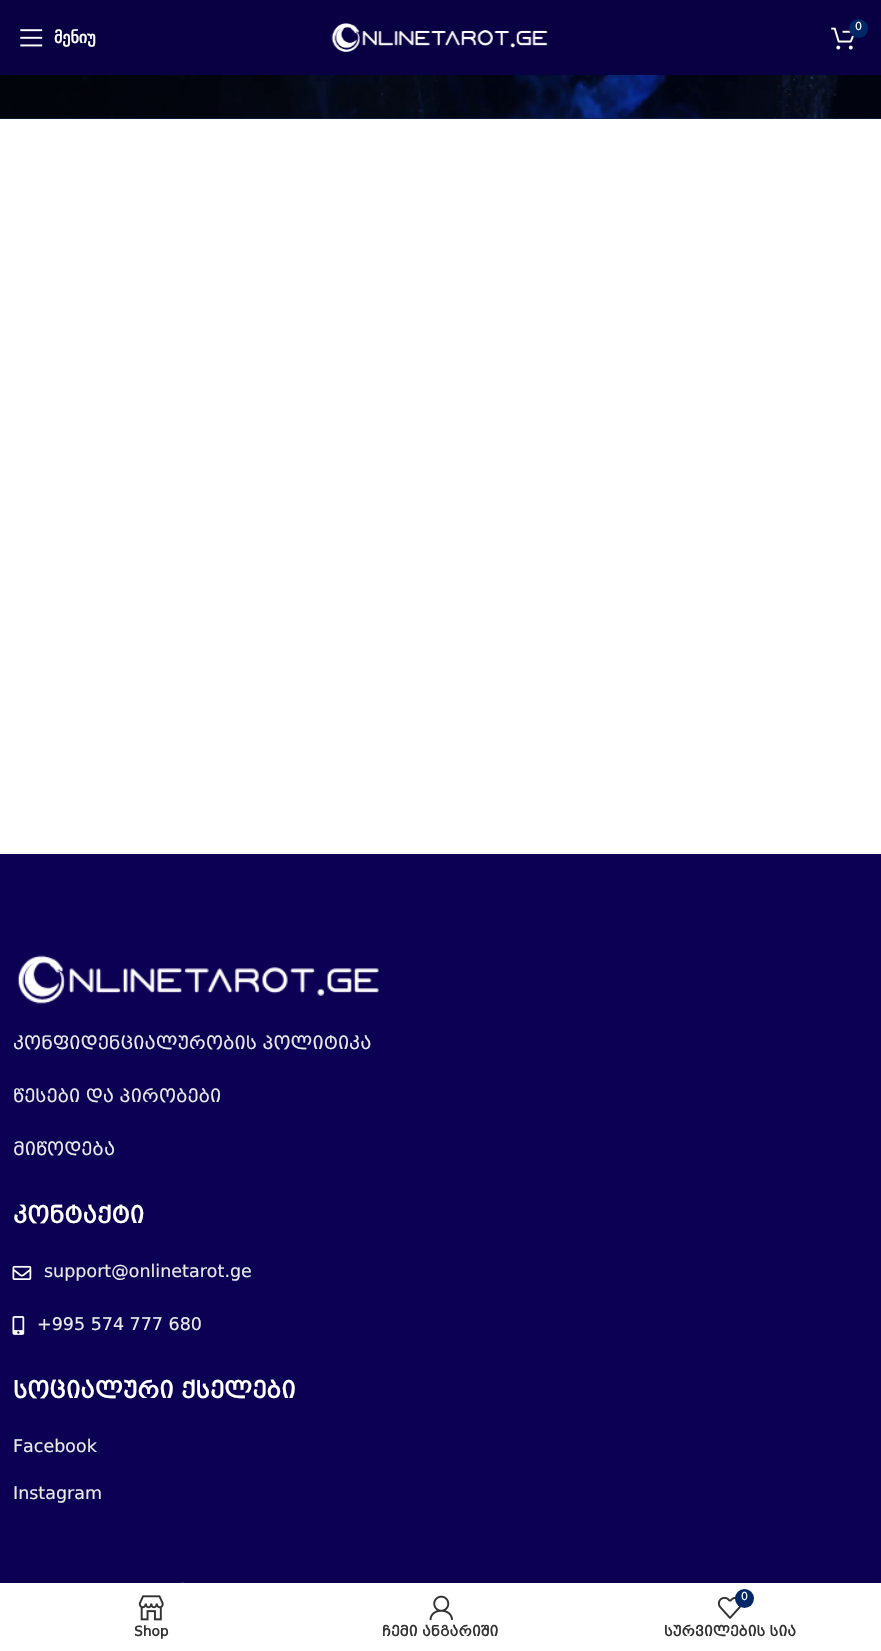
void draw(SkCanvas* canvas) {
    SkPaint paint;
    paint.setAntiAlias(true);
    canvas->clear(0xFFFFFFFF);
    paint.setColor(0xFF092143);
    canvas->drawRect(SkRect::MakeXYWH(0, 118, 881, 1), paint);
    canvas->drawImageRect(SkImages::DeferredFromEncodedData(SkData::MakeFromFileName("img4.png")), SkRect::MakeXYWH(0, 75, 881, 44), SkSamplingOptions());
    paint.setColor(0x1A000000);
    paint.setMaskFilter(SkMaskFilter::MakeBlur(kNormal_SkBlurStyle, 2));
    canvas->drawRect(SkRect::MakeXYWH(0, 1, 881, 75), paint);
    paint.setMaskFilter(nullptr);
    paint.setColor(0xFF090043);
    canvas->drawRect(SkRect::MakeXYWH(0, 0, 881, 75), paint);
    canvas->drawImageRect(SkImages::DeferredFromEncodedData(SkData::MakeFromFileName("img1.png")), SkRect::MakeXYWH(20, 29, 23, 18), SkSamplingOptions());
    SkFont font1(fontMgr->matchFamilyStyle("DejaVu Sans", SkFontStyle::Bold()), 16);
    font1.setSubpixel(true);
    paint.setColor(0xFFFFFFFF);
    canvas->drawString("მენიუ", 54, 43, font1, paint);
    canvas->drawImageRect(SkImages::DeferredFromEncodedData(SkData::MakeFromFileName("img2.png")), SkRect::MakeXYWH(331, 23, 217, 29), SkSamplingOptions());
    canvas->drawImageRect(SkImages::DeferredFromEncodedData(SkData::MakeFromFileName("img3.png")), SkRect::MakeXYWH(831, 27, 23, 23), SkSamplingOptions());
    paint.setColor(0xFF002766);
    canvas->drawCircle(858.5f, 28.5f, 9.5f, paint);
    SkFont font2(fontMgr->matchFamilyStyle("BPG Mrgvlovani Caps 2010", SkFontStyle::Normal()), 11);
    font2.setSubpixel(true);
    paint.setColor(0xFFFFFFFF);
    canvas->drawString("0", 855, 30, font2, paint);
    paint.setColor(0xFF0B0054);
    canvas->drawRect(SkRect::MakeXYWH(0, 854, 881, 729), paint);
    paint.setColor(0xFF0B0151);
    canvas->drawRect(SkRect::MakeXYWH(13, 1540, 856, 1), paint);
    canvas->drawImageRect(SkImages::DeferredFromEncodedData(SkData::MakeFromFileName("img5.png")), SkRect::MakeXYWH(17, 955, 362, 49), SkSamplingOptions());
    SkFont font3(fontMgr->matchFamilyStyle("BPG Mrgvlovani Caps 2010", SkFontStyle::Normal()), 17.5f);
    font3.setSubpixel(true);
    paint.setColor(0xFFEAEAEA);
    canvas->drawString("კონფიდენციალურობის პოლიტიკა", 13, 1049, font3, paint);
    canvas->drawString("წესები და პირობები", 13, 1102, font3, paint);
    canvas->drawString("მიწოდება", 13, 1155, font3, paint);
    SkFont font4(fontMgr->matchFamilyStyle("BPG Mrgvlovani Caps 2010", SkFontStyle::Bold()), 22.5f);
    font4.setSubpixel(true);
    paint.setColor(0xFFFFFFFF);
    canvas->drawString("კონტაქტი", 13, 1223, font4, paint);
    canvas->drawImageRect(SkImages::DeferredFromEncodedData(SkData::MakeFromFileName("img6.png")), SkRect::MakeXYWH(12, 1265, 20, 15), SkSamplingOptions());
    paint.setColor(0xFFEAEAEA);
    canvas->drawString("support@onlinetarot.ge", 44, 1277, font3, paint);
    canvas->drawImageRect(SkImages::DeferredFromEncodedData(SkData::MakeFromFileName("img7.png")), SkRect::MakeXYWH(12, 1316, 13, 19), SkSamplingOptions());
    canvas->drawString("+995 574 777 680", 37, 1330, font3, paint);
    paint.setColor(0xFFFFFFFF);
    canvas->drawString("სოციალური ქსელები", 13, 1398, font4, paint);
    paint.setColor(0xFFEAEAEA);
    canvas->drawString("Facebook", 13, 1452, font3, paint);
    canvas->drawString("Instagram", 13, 1499, font3, paint);
    canvas->drawImageRect(SkImages::DeferredFromEncodedData(SkData::MakeFromFileName("img8.png")), SkRect::MakeXYWH(181, 1582, 3, 1), SkSamplingOptions());
    paint.setColor(0x1F000000);
    paint.setMaskFilter(SkMaskFilter::MakeBlur(kNormal_SkBlurStyle, 5.5f));
    canvas->drawRect(SkRect::MakeXYWH(0, 1583, 881, 68), paint);
    paint.setMaskFilter(nullptr);
    paint.setColor(0xFFFFFFFF);
    canvas->drawRect(SkRect::MakeXYWH(0, 1583, 881, 68), paint);
    canvas->drawImageRect(SkImages::DeferredFromEncodedData(SkData::MakeFromFileName("img9.png")), SkRect::MakeXYWH(138, 1595, 26, 26), SkSamplingOptions());
    SkFont font5(fontMgr->matchFamilyStyle("BPG Mrgvlovani Caps 2010", SkFontStyle::Bold()), 13.75f);
    font5.setSubpixel(true);
    paint.setColor(0xFF333333);
    canvas->drawString("Shop", 134, 1636, font5, paint);
    canvas->drawImageRect(SkImages::DeferredFromEncodedData(SkData::MakeFromFileName("img10.png")), SkRect::MakeXYWH(429, 1595, 24, 25), SkSamplingOptions());
    canvas->drawString("ჩემი ანგარიში", 382, 1636, font5, paint);
    canvas->drawImageRect(SkImages::DeferredFromEncodedData(SkData::MakeFromFileName("img11.png")), SkRect::MakeXYWH(717, 1596, 24, 23), SkSamplingOptions());
    paint.setColor(0xFF002766);
    canvas->drawCircle(744.5f, 1598.5f, 9.5f, paint);
    paint.setColor(0xFFFFFFFF);
    canvas->drawString("0", 741, 1600, font2, paint);
    paint.setColor(0xFF333333);
    canvas->drawString("სურვილების სია", 664, 1636, font5, paint);
}
